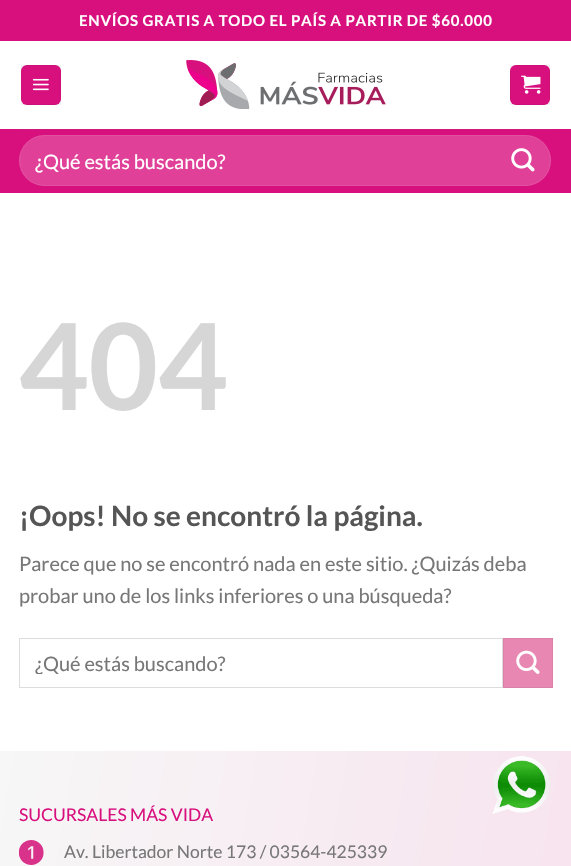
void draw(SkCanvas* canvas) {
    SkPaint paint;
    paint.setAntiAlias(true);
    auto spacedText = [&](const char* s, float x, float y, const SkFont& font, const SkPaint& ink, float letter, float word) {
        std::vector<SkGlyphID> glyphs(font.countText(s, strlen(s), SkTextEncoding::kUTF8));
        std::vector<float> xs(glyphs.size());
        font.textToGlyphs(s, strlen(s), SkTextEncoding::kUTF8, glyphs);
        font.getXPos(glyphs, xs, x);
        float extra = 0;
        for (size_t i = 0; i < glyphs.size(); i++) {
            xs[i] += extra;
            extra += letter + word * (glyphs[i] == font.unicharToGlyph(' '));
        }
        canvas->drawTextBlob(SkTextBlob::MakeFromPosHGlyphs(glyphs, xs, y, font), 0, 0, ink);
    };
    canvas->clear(0xFFFFFFFF);
    paint.setColor(0xFFD8107E);
    canvas->drawRect(SkRect::MakeXYWH(0, 0, 571, 41), paint);
    SkFont font1(fontMgr->matchFamilyStyle("Lato", SkFontStyle::Bold()), 15);
    font1.setSubpixel(true);
    paint.setColor(0xFFFFFFFF);
    spacedText("ENVÍOS GRATIS A TODO EL PAÍS A PARTIR DE $60.000", 79, 26, font1, paint, 0.75f, 0);
    paint.setColor(0xFFD8107E);
    canvas->drawRoundRect(SkRect::MakeXYWH(21, 65, 40, 40), 6, 6, paint);
    paint.setStyle(SkPaint::kStroke_Style);
    paint.setStrokeWidth(1);
    paint.setColor(0x0D000000);
    canvas->drawRect(SkRect::MakeXYWH(21.5f, 65.5f, 39, 39), paint);
    canvas->drawImageRect(SkImages::DeferredFromEncodedData(SkData::MakeFromFileName("img1.png")), SkRect::MakeXYWH(32, 78, 17, 13), SkSamplingOptions());
    canvas->drawImageRect(SkImages::DeferredFromEncodedData(SkData::MakeFromFileName("img2.png")), SkRect::MakeXYWH(186, 60, 200, 49), SkSamplingOptions());
    paint.setStyle(SkPaint::kFill_Style);
    paint.setColor(0xFFD8107E);
    canvas->drawRoundRect(SkRect::MakeXYWH(510, 65, 40, 40), 6, 6, paint);
    paint.setStyle(SkPaint::kStroke_Style);
    paint.setColor(0x0D000000);
    canvas->drawRect(SkRect::MakeXYWH(510.5f, 65.5f, 39, 39), paint);
    canvas->drawImageRect(SkImages::DeferredFromEncodedData(SkData::MakeFromFileName("img3.png")), SkRect::MakeXYWH(521, 75, 20, 19), SkSamplingOptions());
    paint.setStyle(SkPaint::kFill_Style);
    paint.setColor(0xFFD8107E);
    canvas->drawRect(SkRect::MakeXYWH(0, 129, 571, 64), paint);
    paint.setColor(0xFFCE1A7D);
    canvas->drawRect(SkRect::MakeXYWH(19, 129, 534, 1), paint);
    paint.setColor(0xFFE04098);
    canvas->drawRoundRect(SkRect::MakeXYWH(19, 135, 532, 51), 25.5f, 25.5f, paint);
    paint.setStyle(SkPaint::kStroke_Style);
    paint.setColor(0x17FFFFFF);
    canvas->drawRoundRect(SkRect::MakeXYWH(19.5f, 135.5f, 531, 50), 25, 25, paint);
    SkFont font2(fontMgr->matchFamilyStyle("Lato", SkFontStyle::Normal()), 20);
    font2.setSubpixel(true);
    paint.setStyle(SkPaint::kFill_Style);
    paint.setColor(0xFFFFFFFF);
    canvas->drawString("¿Qué estás buscando?", 35, 169, font2, paint);
    canvas->drawImageRect(SkImages::DeferredFromEncodedData(SkData::MakeFromFileName("img4.png")), SkRect::MakeXYWH(511, 148, 24, 24), SkSamplingOptions());
    SkFont font3(fontMgr->matchFamilyStyle("Lato", SkFontStyle::Bold()), 120);
    font3.setSubpixel(true);
    paint.setColor(0xFFD6D6D6);
    canvas->drawString("404", 19, 410, font3, paint);
    SkFont font4(fontMgr->matchFamilyStyle("Lato", SkFontStyle::Bold()), 28);
    font4.setSubpixel(true);
    paint.setColor(0xFF555555);
    canvas->drawString("¡Oops! No se encontró la página.", 19, 526, font4, paint);
    paint.setColor(0xFF777777);
    canvas->drawString("Parece que no se encontró nada en este sitio. ¿Quizás deba", 19, 571, font2, paint);
    canvas->drawString("probar uno de los links inferiores o una búsqueda?", 19, 603, font2, paint);
    paint.setStyle(SkPaint::kStroke_Style);
    paint.setColor(0xFFDDDDDD);
    canvas->drawRect(SkRect::MakeXYWH(19.5f, 638.5f, 483, 49), paint);
    canvas->save();
    canvas->clipRect(SkRect::MakeXYWH(35, 650, 446, 24));
    paint.setStyle(SkPaint::kFill_Style);
    paint.setColor(0xFF777777);
    canvas->drawString("¿Qué estás buscando?", 35, 671, font2, paint);
    canvas->restore();
    paint.setColor(0xFFE787B2);
    canvas->drawRect(SkRect::MakeXYWH(503.5f, 638.5f, 49, 49), paint);
    paint.setStyle(SkPaint::kStroke_Style);
    paint.setColor(0xFFDB80A9);
    canvas->drawRect(SkRect::MakeXYWH(503.5f, 638.5f, 49, 49), paint);
    canvas->drawImageRect(SkImages::DeferredFromEncodedData(SkData::MakeFromFileName("img5.png")), SkRect::MakeXYWH(516, 650, 24, 24), SkSamplingOptions());
    paint.setStyle(SkPaint::kFill_Style);
    {
        const SkColor colors[] = {0xFFF7F7F7, 0xFFF7D6E8};
        const float stops[] = {0, 1};
        const SkPoint ends[] = {{-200, 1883}, {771, 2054}};
        paint.setShader(SkGradientShader::MakeLinear(ends, colors, stops, 2, SkTileMode::kClamp));
        paint.setAlpha(255);
    }
    canvas->drawRect(SkRect::MakeXYWH(0, 751, 571, 115), paint);
    canvas->drawImageRect(SkImages::DeferredFromEncodedData(SkData::MakeFromFileName("img6.png")), SkRect::MakeXYWH(492, 756, 58, 58), SkSamplingOptions());
    SkFont font5(fontMgr->matchFamilyStyle("Lato", SkFontStyle::Normal()), 17.5f);
    font5.setSubpixel(true);
    paint.setShader(nullptr);
    paint.setColor(0xFFD8107E);
    canvas->drawString("SUCURSALES MÁS VIDA", 19, 821, font5, paint);
    canvas->drawImageRect(SkImages::DeferredFromEncodedData(SkData::MakeFromFileName("img7.png")), SkRect::MakeXYWH(19, 840, 25, 25), SkSamplingOptions());
    paint.setColor(0xFF777777);
    canvas->drawString("Av. Libertador Norte 173 / 03564-425339", 64, 858, font5, paint);
}
